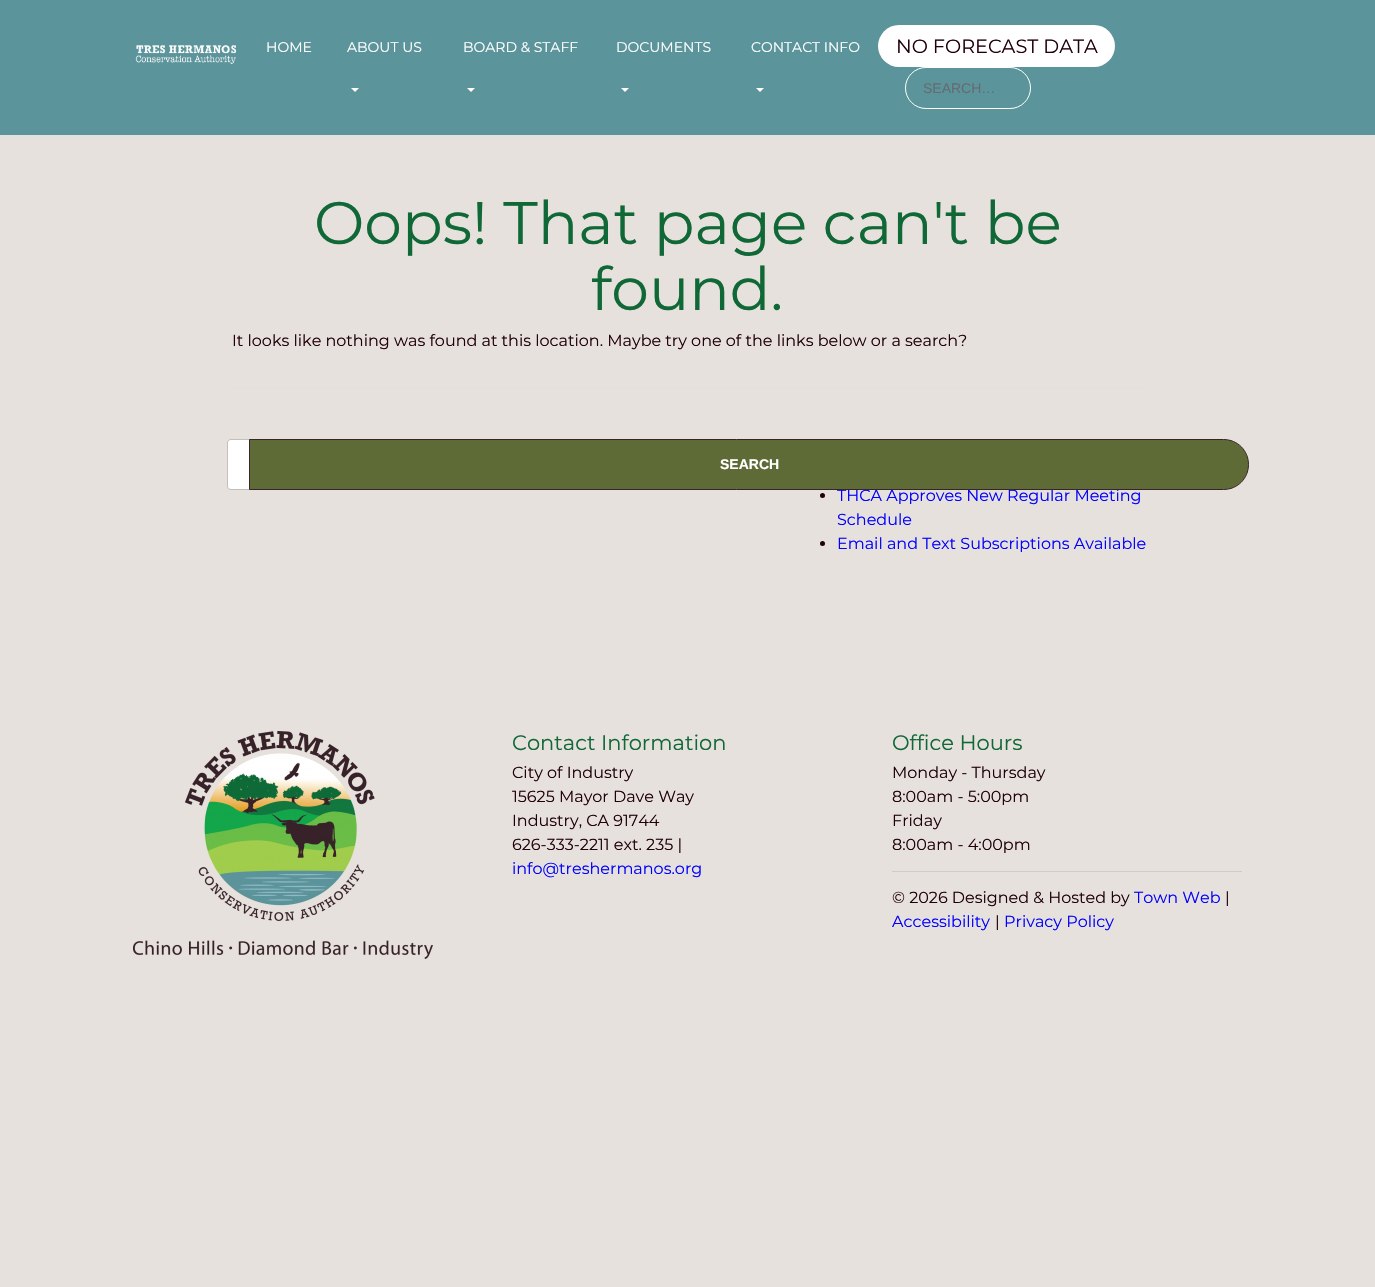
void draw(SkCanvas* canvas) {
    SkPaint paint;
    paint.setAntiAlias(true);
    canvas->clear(0xFFE6E1DD);
    paint.setColor(0xFF5C949B);
    canvas->drawRect(SkRect::MakeXYWH(0, 0, 1375, 135), paint);
    canvas->drawImageRect(SkImages::DeferredFromEncodedData(SkData::MakeFromFileName("img1.png")), SkRect::MakeXYWH(135, 45, 102, 19), SkSamplingOptions());
    SkFont font1(fontMgr->matchFamilyStyle("Montserrat", SkFontStyle::Normal()), 14);
    font1.setSubpixel(true);
    paint.setColor(0xFFFFFFFF);
    canvas->drawString("HOME", 266, 52, font1, paint);
    canvas->drawString("ABOUT US", 347, 52, font1, paint);
    canvas->drawPath(SkPathBuilder().moveTo(351, 88).lineTo(359, 88).lineTo(355, 92).close().detach(), paint);
    canvas->drawString("BOARD & STAFF", 463, 52, font1, paint);
    canvas->drawPath(SkPathBuilder().moveTo(467, 88).lineTo(475, 88).lineTo(471, 92).close().detach(), paint);
    canvas->drawString("DOCUMENTS", 616, 52, font1, paint);
    canvas->drawPath(SkPathBuilder().moveTo(621, 88).lineTo(629, 88).lineTo(625, 92).close().detach(), paint);
    canvas->drawString("CONTACT INFO", 751, 52, font1, paint);
    canvas->drawPath(SkPathBuilder().moveTo(756, 88).lineTo(764, 88).lineTo(760, 92).close().detach(), paint);
    canvas->drawRoundRect(SkRect::MakeXYWH(878, 25, 237, 42), 21, 21, paint);
    SkFont font2(fontMgr->matchFamilyStyle("Montserrat", SkFontStyle::Normal()), 19.25f);
    font2.setSubpixel(true);
    paint.setColor(0xFF21000B);
    canvas->drawString("NO FORECAST DATA", 896, 53, font2, paint);
    paint.setStyle(SkPaint::kStroke_Style);
    paint.setStrokeWidth(1);
    paint.setColor(0xFFFFFFFF);
    canvas->drawRoundRect(SkRect::MakeXYWH(905.5f, 67.5f, 125, 41), 20.5f, 20.5f, paint);
    SkFont font3(fontMgr->matchFamilyStyle("Liberation Sans", SkFontStyle::Normal()), 14);
    font3.setSubpixel(true);
    paint.setStyle(SkPaint::kFill_Style);
    paint.setColor(0xFF636C72);
    canvas->drawString("SEARCH…", 923, 93, font3, paint);
    paint.setColor(0xFFE0E0E0);
    canvas->drawRect(SkRect::MakeXYWH(232, 388, 912, 1), paint);
    SkFont font4(fontMgr->matchFamilyStyle("Montserrat", SkFontStyle::Normal()), 60);
    font4.setSubpixel(true);
    paint.setColor(0xFF116837);
    canvas->drawString("Oops! That page can't be", 314, 244, font4, paint);
    canvas->drawString("found.", 591, 310, font4, paint);
    SkFont font5(fontMgr->matchFamilyStyle("Montserrat", SkFontStyle::Normal()), 16);
    font5.setSubpixel(true);
    paint.setColor(0xFF21000B);
    canvas->drawString("It looks like nothing was found at this location. Maybe try one of the links below or a search?", 232, 346, font5, paint);
    paint.setColor(0xFFFFFFFF);
    canvas->drawPath(SkPathBuilder().moveTo(230.5f, 440).lineTo(249, 440).lineTo(249, 489).lineTo(230.5f, 489).cubicTo(229, 489, 228, 488, 228, 486.5f).lineTo(228, 442.5f).cubicTo(228, 441, 229, 440, 230.5f, 440).close().detach(), paint);
    paint.setStyle(SkPaint::kStroke_Style);
    paint.setColor(0x26000000);
    canvas->drawPath(SkPathBuilder().moveTo(231, 439.5f).lineTo(249.5f, 439.5f).lineTo(249.5f, 489.5f).lineTo(231, 489.5f).cubicTo(229, 489.5f, 227.5f, 488, 227.5f, 486).lineTo(227.5f, 443).cubicTo(227.5f, 441, 229, 439.5f, 231, 439.5f).close().detach(), paint);
    paint.setStyle(SkPaint::kFill_Style);
    paint.setColor(0xFF0000FF);
    canvas->drawString("THCA Approves New Regular Meeting", 837, 501, font5, paint);
    paint.setColor(0xFF5E6B37);
    canvas->drawPath(SkPathBuilder().moveTo(249.5f, 439.5f).lineTo(1223.5f, 439.5f).cubicTo(1237.5f, 439.5f, 1248.5f, 450.5f, 1248.5f, 464.5f).cubicTo(1248.5f, 478.5f, 1237.5f, 489.5f, 1223.5f, 489.5f).lineTo(249.5f, 489.5f).close().detach(), paint);
    paint.setStyle(SkPaint::kStroke_Style);
    paint.setColor(0xFF3A242B);
    canvas->drawPath(SkPathBuilder().moveTo(249.5f, 439.5f).lineTo(1223.5f, 439.5f).cubicTo(1237.5f, 439.5f, 1248.5f, 450.5f, 1248.5f, 464.5f).cubicTo(1248.5f, 478.5f, 1237.5f, 489.5f, 1223.5f, 489.5f).lineTo(249.5f, 489.5f).close().detach(), paint);
    SkFont font6(fontMgr->matchFamilyStyle("Liberation Sans", SkFontStyle::Bold()), 14);
    font6.setSubpixel(true);
    paint.setStyle(SkPaint::kFill_Style);
    paint.setColor(0xFFFFFFFF);
    canvas->drawString("SEARCH", 720, 469, font6, paint);
    paint.setColor(0xFF21000B);
    canvas->drawCircle(822.5f, 495.5f, 2.5f, paint);
    paint.setColor(0xFF0000FF);
    canvas->drawString("Schedule", 837, 525, font5, paint);
    paint.setColor(0xFF21000B);
    canvas->drawCircle(822.5f, 543.5f, 2.5f, paint);
    paint.setColor(0xFF0000FF);
    canvas->drawString("Email and Text Subscriptions Available", 837, 549, font5, paint);
    canvas->drawImageRect(SkImages::DeferredFromEncodedData(SkData::MakeFromFileName("img2.png")), SkRect::MakeXYWH(133, 731, 300, 228), SkSamplingOptions());
    SkFont font7(fontMgr->matchFamilyStyle("Montserrat", SkFontStyle::Normal()), 21);
    font7.setSubpixel(true);
    paint.setColor(0xFF116837);
    canvas->drawString("Contact Information", 512, 750, font7, paint);
    paint.setColor(0xFF21000B);
    canvas->drawString("City of Industry", 512, 778, font5, paint);
    canvas->drawString("15625 Mayor Dave Way", 512, 802, font5, paint);
    canvas->drawString("Industry, CA 91744", 512, 826, font5, paint);
    canvas->drawString("626-333-2211 ext. 235 |", 512, 850, font5, paint);
    paint.setColor(0xFF0000FF);
    canvas->drawString("info@treshermanos.org", 512, 874, font5, paint);
    paint.setColor(0xFF116837);
    canvas->drawString("Office Hours", 892, 750, font7, paint);
    paint.setColor(0xFF21000B);
    canvas->drawString("Monday - Thursday", 892, 778, font5, paint);
    canvas->drawString("8:00am - 5:00pm", 892, 802, font5, paint);
    canvas->drawString("Friday", 892, 826, font5, paint);
    canvas->drawString("8:00am - 4:00pm", 892, 850, font5, paint);
    paint.setColor(0xFFCFCBC7);
    canvas->drawRect(SkRect::MakeXYWH(892, 871, 350, 1), paint);
    paint.setColor(0xFF21000B);
    canvas->drawString("© 2026 Designed & Hosted by", 892, 903, font5, paint);
    paint.setColor(0xFF0000FF);
    canvas->drawString("Town Web", 1134, 903, font5, paint);
    paint.setColor(0xFF21000B);
    canvas->drawString("|", 1225, 903, font5, paint);
    paint.setColor(0xFF0000FF);
    canvas->drawString("Accessibility", 892, 927, font5, paint);
    paint.setColor(0xFF21000B);
    canvas->drawString("|", 995, 927, font5, paint);
    paint.setColor(0xFF0000FF);
    canvas->drawString("Privacy Policy", 1004, 927, font5, paint);
}
